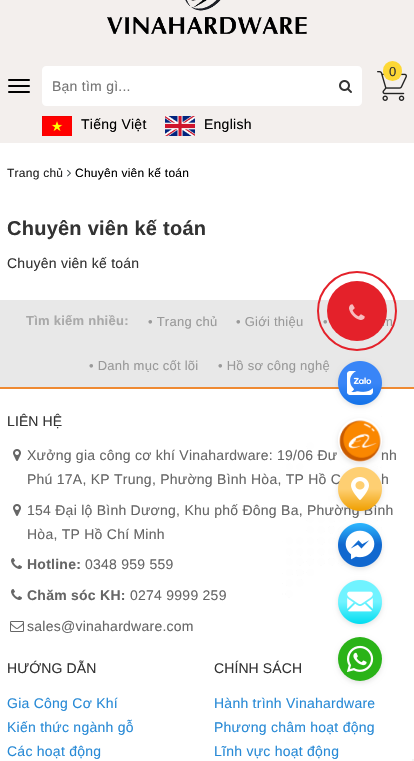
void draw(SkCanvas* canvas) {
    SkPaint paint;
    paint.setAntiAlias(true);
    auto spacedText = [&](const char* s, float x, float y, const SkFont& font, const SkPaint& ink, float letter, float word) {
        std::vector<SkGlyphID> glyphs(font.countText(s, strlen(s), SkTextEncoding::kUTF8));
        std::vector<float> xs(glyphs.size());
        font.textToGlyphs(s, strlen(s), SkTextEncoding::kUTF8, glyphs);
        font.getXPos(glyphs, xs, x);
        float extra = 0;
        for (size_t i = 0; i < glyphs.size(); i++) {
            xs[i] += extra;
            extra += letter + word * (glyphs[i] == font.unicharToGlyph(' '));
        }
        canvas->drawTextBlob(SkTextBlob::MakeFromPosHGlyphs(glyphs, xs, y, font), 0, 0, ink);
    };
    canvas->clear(0xFFFFFFFF);
    paint.setColor(0xFFF3EFED);
    canvas->drawRect(SkRect::MakeXYWH(0, 0, 414, 143), paint);
    canvas->drawImageRect(SkImages::DeferredFromEncodedData(SkData::MakeFromFileName("img1.png")), SkRect::MakeXYWH(107, 0, 200, 34), SkSamplingOptions());
    canvas->drawImageRect(SkImages::DeferredFromEncodedData(SkData::MakeFromFileName("img2.png")), SkRect::MakeXYWH(377, 71, 30, 30), SkSamplingOptions());
    paint.setColor(0xFFFDD835);
    canvas->drawRoundRect(SkRect::MakeXYWH(383, 61, 19, 20), 9.5f, 9.5f, paint);
    SkFont font1(fontMgr->matchFamilyStyle("Liberation Sans", SkFontStyle::Normal()), 13);
    font1.setSubpixel(true);
    paint.setColor(0xFF333333);
    spacedText("0", 389, 76, font1, paint, 0.25f, 0);
    paint.setColor(0xFF000000);
    canvas->drawRoundRect(SkRect::MakeXYWH(8, 79, 22, 2), 1, 1, paint);
    canvas->drawRoundRect(SkRect::MakeXYWH(8, 85, 22, 2), 1, 1, paint);
    canvas->drawRoundRect(SkRect::MakeXYWH(8, 91, 22, 2), 1, 1, paint);
    paint.setColor(0xFFFFFFFF);
    canvas->drawPath(SkPathBuilder().moveTo(46, 66).lineTo(330, 66).lineTo(330, 106).lineTo(46, 106).cubicTo(44, 106, 42, 104, 42, 102).lineTo(42, 70).cubicTo(42, 68, 44, 66, 46, 66).close().detach(), paint);
    SkFont font2(fontMgr->matchFamilyStyle("Liberation Sans", SkFontStyle::Normal()), 14);
    font2.setSubpixel(true);
    paint.setColor(0xFF757575);
    spacedText("Bạn tìm gì...", 52, 91, font2, paint, 0.25f, 0);
    paint.setColor(0xFFFFFFFF);
    canvas->drawPath(SkPathBuilder().moveTo(329, 66).lineTo(358, 66).cubicTo(360, 66, 362, 68, 362, 70).lineTo(362, 102).cubicTo(362, 104, 360, 106, 358, 106).lineTo(329, 106).close().detach(), paint);
    canvas->drawImageRect(SkImages::DeferredFromEncodedData(SkData::MakeFromFileName("img3.png")), SkRect::MakeXYWH(339, 80, 13, 13), SkSamplingOptions());
    canvas->drawImageRect(SkImages::DeferredFromEncodedData(SkData::MakeFromFileName("img4.png")), SkRect::MakeXYWH(42, 116, 30, 20), SkSamplingOptions());
    paint.setColor(0xFF000000);
    spacedText("Tiếng Việt", 81, 129, font2, paint, 0.25f, 0);
    canvas->drawImageRect(SkImages::DeferredFromEncodedData(SkData::MakeFromFileName("img5.png")), SkRect::MakeXYWH(165, 116, 30, 20), SkSamplingOptions());
    spacedText("English", 204, 129, font2, paint, 0.25f, 0);
    SkFont font3(fontMgr->matchFamilyStyle("Liberation Sans", SkFontStyle::Normal()), 12);
    font3.setSubpixel(true);
    paint.setColor(0xFF222222);
    spacedText("Trang chủ", 7, 177, font3, paint, 0.25f, 0);
    canvas->drawImageRect(SkImages::DeferredFromEncodedData(SkData::MakeFromFileName("img6.png")), SkRect::MakeXYWH(67, 169, 4, 8), SkSamplingOptions());
    paint.setColor(0xFF000000);
    spacedText("Chuyên viên kế toán", 75, 177, font3, paint, 0.25f, 0);
    SkFont font4(fontMgr->matchFamilyStyle("Liberation Sans", SkFontStyle::Bold()), 20);
    font4.setSubpixel(true);
    paint.setColor(0xFF333333);
    spacedText("Chuyên viên kế toán", 7, 235, font4, paint, 0.25f, 0);
    spacedText("Chuyên viên kế toán", 7, 268, font2, paint, 0.25f, 0);
    paint.setColor(0xFFE8E8E8);
    canvas->drawRect(SkRect::MakeXYWH(0, 300, 414, 87), paint);
    SkFont font5(fontMgr->matchFamilyStyle("Liberation Sans", SkFontStyle::Bold()), 13);
    font5.setSubpixel(true);
    paint.setColor(0xFFA9A9A9);
    spacedText("Tìm kiếm nhiều:", 26, 325, font5, paint, 0.25f, 0);
    paint.setColor(0xFF999999);
    spacedText("• Trang chủ", 148, 326, font1, paint, 0.25f, 0);
    spacedText("• Giới thiệu", 236, 326, font1, paint, 0.25f, 0);
    spacedText("•", 323, 326, font1, paint, 0.25f, 0);
    spacedText("m", 382, 326, font1, paint, 0.25f, 0);
    spacedText("• Danh mục cốt lõi", 89, 370, font1, paint, 0.25f, 0);
    spacedText("• Hồ sơ công nghệ", 218, 370, font1, paint, 0.25f, 0);
    canvas->drawImageRect(SkImages::DeferredFromEncodedData(SkData::MakeFromFileName("img7.png")), SkRect::MakeXYWH(282, 416, 100, 344), SkSamplingOptions());
    paint.setColor(0xFFEF8A32);
    canvas->drawRect(SkRect::MakeXYWH(0, 387, 414, 2), paint);
    paint.setColor(0xFF333333);
    spacedText("LIÊN HỆ", 7, 426, font2, paint, 0.1f, 0);
    canvas->drawImageRect(SkImages::DeferredFromEncodedData(SkData::MakeFromFileName("img8.png")), SkRect::MakeXYWH(13, 449, 8, 12), SkSamplingOptions());
    paint.setColor(0xFF666666);
    spacedText("Xưởng gia công cơ khí Vinahardware: 19/06 Đư", 27, 460, font2, paint, 0.25f, 0);
    spacedText("nh", 381, 460, font2, paint, 0.25f, 0);
    spacedText("Phú 17A, KP Trung, Phường Bình Hòa, TP Hồ C", 27, 484, font2, paint, 0.25f, 0);
    spacedText("h", 381, 484, font2, paint, 0.25f, 0);
    canvas->drawImageRect(SkImages::DeferredFromEncodedData(SkData::MakeFromFileName("img8.png")), SkRect::MakeXYWH(13, 504, 8, 12), SkSamplingOptions());
    spacedText("154 Đại lộ Bình Dương, Khu phố Đông Ba, Phường Bình", 27, 515, font2, paint, 0.25f, 0);
    spacedText("Hòa, TP Hồ Chí Minh", 27, 539, font2, paint, 0.25f, 0);
    canvas->drawImageRect(SkImages::DeferredFromEncodedData(SkData::MakeFromFileName("img9.png")), SkRect::MakeXYWH(11, 558, 11, 11), SkSamplingOptions());
    SkFont font6(fontMgr->matchFamilyStyle("Liberation Sans", SkFontStyle::Bold()), 14);
    font6.setSubpixel(true);
    spacedText("Hotline:", 27, 569, font6, paint, 0.25f, 0);
    spacedText("0348 959 559", 85, 569, font2, paint, 0.25f, 0);
    canvas->drawImageRect(SkImages::DeferredFromEncodedData(SkData::MakeFromFileName("img9.png")), SkRect::MakeXYWH(11, 589, 11, 11), SkSamplingOptions());
    spacedText("Chăm sóc KH:", 27, 600, font6, paint, 0.25f, 0);
    spacedText("0274 9999 259", 130, 600, font2, paint, 0.25f, 0);
    canvas->drawImageRect(SkImages::DeferredFromEncodedData(SkData::MakeFromFileName("img10.png")), SkRect::MakeXYWH(10, 621, 14, 11), SkSamplingOptions());
    spacedText("sales@vinahardware.com", 27, 631, font2, paint, 0.25f, 0);
    paint.setColor(0xFF333333);
    spacedText("HƯỚNG DẪN", 7, 673, font2, paint, 0.1f, 0);
    paint.setColor(0xFF288AD6);
    spacedText("Gia Công Cơ Khí", 7, 708, font2, paint, 0.25f, 0);
    spacedText("Kiến thức ngành gỗ", 7, 732, font2, paint, 0.25f, 0);
    spacedText("Các hoạt động", 7, 756, font2, paint, 0.25f, 0);
    paint.setColor(0xFF333333);
    spacedText("CHÍNH SÁCH", 214, 673, font2, paint, 0.1f, 0);
    paint.setColor(0xFF288AD6);
    spacedText("Hành trình Vinahardware", 214, 708, font2, paint, 0.25f, 0);
    spacedText("Phương châm hoạt động", 214, 732, font2, paint, 0.25f, 0);
    spacedText("Lĩnh vực hoạt động", 214, 756, font2, paint, 0.25f, 0);
    paint.setStyle(SkPaint::kStroke_Style);
    paint.setStrokeWidth(2);
    paint.setColor(0xFFE4212A);
    canvas->drawCircle(357, 311, 39, paint);
    paint.setStyle(SkPaint::kFill_Style);
    canvas->drawCircle(357, 311, 30, paint);
    canvas->drawImageRect(SkImages::DeferredFromEncodedData(SkData::MakeFromFileName("img11.png")), SkRect::MakeXYWH(349, 304, 16, 16), SkSamplingOptions());
    paint.setColor(0x1C000000);
    paint.setMaskFilter(SkMaskFilter::MakeBlur(kNormal_SkBlurStyle, 2.5f));
    canvas->drawRoundRect(SkRect::MakeXYWH(338, 363, 44, 44), 22, 22, paint);
    paint.setMaskFilter(nullptr);
    canvas->drawImageRect(SkImages::DeferredFromEncodedData(SkData::MakeFromFileName("img12.png")), SkRect::MakeXYWH(338, 361, 44, 44), SkSamplingOptions());
    canvas->save();
    canvas->clipPath(SkPathBuilder(SkPathFillType::kEvenOdd).moveTo(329, 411).lineTo(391, 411).lineTo(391, 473).lineTo(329, 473).close().moveTo(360, 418).cubicTo(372, 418, 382, 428, 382, 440).cubicTo(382, 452, 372, 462, 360, 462).cubicTo(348, 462, 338, 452, 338, 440).cubicTo(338, 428, 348, 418, 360, 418).close().detach(), true);
    paint.setMaskFilter(SkMaskFilter::MakeBlur(kNormal_SkBlurStyle, 2.5f));
    canvas->drawRoundRect(SkRect::MakeXYWH(338, 420, 44, 44), 22, 22, paint);
    paint.setMaskFilter(nullptr);
    canvas->restore();
    canvas->drawImageRect(SkImages::DeferredFromEncodedData(SkData::MakeFromFileName("img13.png")), SkRect::MakeXYWH(339, 420, 42, 42), SkSamplingOptions());
    paint.setMaskFilter(SkMaskFilter::MakeBlur(kNormal_SkBlurStyle, 2.5f));
    canvas->drawRoundRect(SkRect::MakeXYWH(338, 469, 44, 44), 22, 22, paint);
    paint.setMaskFilter(nullptr);
    canvas->drawImageRect(SkImages::DeferredFromEncodedData(SkData::MakeFromFileName("img14.png")), SkRect::MakeXYWH(338, 467, 44, 44), SkSamplingOptions());
    paint.setMaskFilter(SkMaskFilter::MakeBlur(kNormal_SkBlurStyle, 2.5f));
    canvas->drawRoundRect(SkRect::MakeXYWH(338, 525, 44, 44), 22, 22, paint);
    paint.setMaskFilter(nullptr);
    canvas->drawImageRect(SkImages::DeferredFromEncodedData(SkData::MakeFromFileName("img15.png")), SkRect::MakeXYWH(338, 523, 44, 44), SkSamplingOptions());
    paint.setMaskFilter(SkMaskFilter::MakeBlur(kNormal_SkBlurStyle, 2.5f));
    canvas->drawRoundRect(SkRect::MakeXYWH(338, 582, 44, 44), 22, 22, paint);
    paint.setMaskFilter(nullptr);
    canvas->drawImageRect(SkImages::DeferredFromEncodedData(SkData::MakeFromFileName("img16.png")), SkRect::MakeXYWH(338, 580, 44, 44), SkSamplingOptions());
    paint.setMaskFilter(SkMaskFilter::MakeBlur(kNormal_SkBlurStyle, 2.5f));
    canvas->drawRoundRect(SkRect::MakeXYWH(338, 639, 44, 44), 22, 22, paint);
    paint.setMaskFilter(nullptr);
    paint.setColor(0xFF2AB318);
    canvas->drawCircle(360, 659, 22, paint);
    canvas->drawImageRect(SkImages::DeferredFromEncodedData(SkData::MakeFromFileName("img17.png")), SkRect::MakeXYWH(347, 645, 27, 27), SkSamplingOptions());
    paint.setColor(0xFFF5F5F5);
    canvas->drawRect(SkRect::MakeXYWH(412, 759, 2, 2), paint);
}
